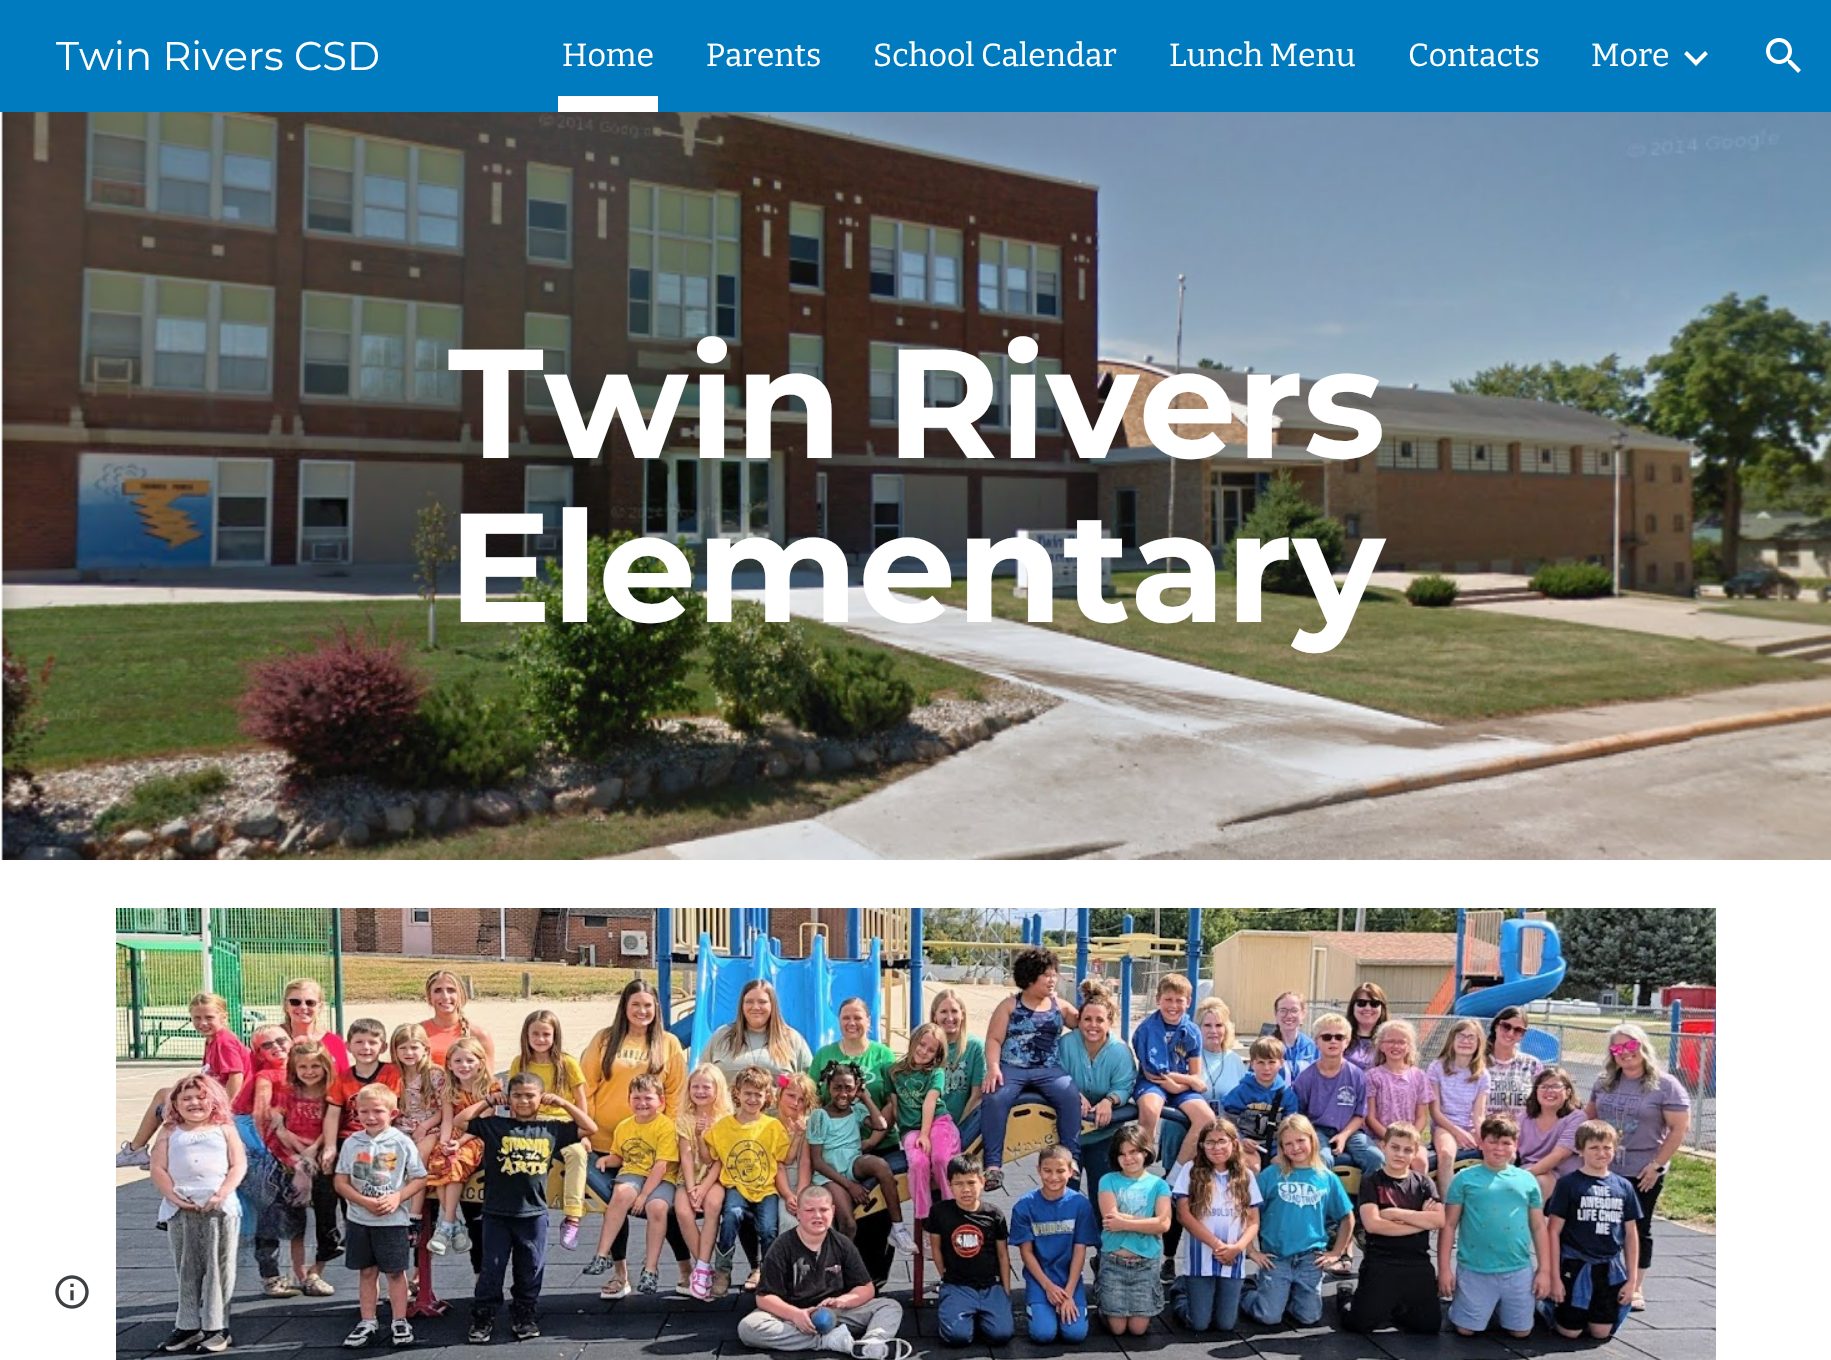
void draw(SkCanvas* canvas) {
    SkPaint paint;
    paint.setAntiAlias(true);
    canvas->clear(0xFFFFFFFF);
    paint.setColor(0xFF007BBF);
    canvas->drawRect(SkRect::MakeXYWH(0, 0, 1831, 112), paint);
    SkFont font1(fontMgr->matchFamilyStyle("Montserrat", SkFontStyle::Normal()), 40);
    font1.setSubpixel(true);
    paint.setColor(0xFFFFFFFF);
    canvas->drawString("Twin Rivers CSD", 56, 70, font1, paint);
    canvas->drawRect(SkRect::MakeXYWH(558, 96, 100, 16), paint);
    SkFont font2(fontMgr->matchFamilyStyle("Bitter", SkFontStyle::Normal()), 32);
    font2.setSubpixel(true);
    canvas->drawString("Home", 562, 66, font2, paint);
    canvas->drawString("Parents", 706, 66, font2, paint);
    canvas->drawString("School Calendar", 873, 66, font2, paint);
    canvas->drawString("Lunch Menu", 1169, 66, font2, paint);
    canvas->drawString("Contacts", 1408, 66, font2, paint);
    canvas->drawString("More", 1591, 66, font2, paint);
    paint.setStyle(SkPaint::kStroke_Style);
    paint.setStrokeWidth(4);
    canvas->drawPath(SkPathBuilder().moveTo(1685.5f, 52.5f).lineTo(1697.5f, 64.5f).moveTo(1694.5f, 64.5f).lineTo(1706.5f, 52.5f).detach(), paint);
    canvas->drawImageRect(SkImages::DeferredFromEncodedData(SkData::MakeFromFileName("img1.png")), SkRect::MakeXYWH(1766, 38, 35, 35), SkSamplingOptions());
    canvas->drawImageRect(SkImages::DeferredFromEncodedData(SkData::MakeFromFileName("img2.png")), SkRect::MakeXYWH(1, 112, 1830, 748), SkSamplingOptions());
    SkFont font3(fontMgr->matchFamilyStyle("Montserrat", SkFontStyle::Bold()), 154.75f);
    font3.setSubpixel(true);
    paint.setStyle(SkPaint::kFill_Style);
    canvas->drawString("Twin Rivers", 448, 458, font3, paint);
    canvas->drawString("Elementary", 448, 622, font3, paint);
    canvas->drawImageRect(SkImages::DeferredFromEncodedData(SkData::MakeFromFileName("img3.png")), SkRect::MakeXYWH(116, 908, 1600, 452), SkSamplingOptions());
    canvas->drawImageRect(SkImages::DeferredFromEncodedData(SkData::MakeFromFileName("img4.png")), SkRect::MakeXYWH(55, 1275, 34, 34), SkSamplingOptions());
}
